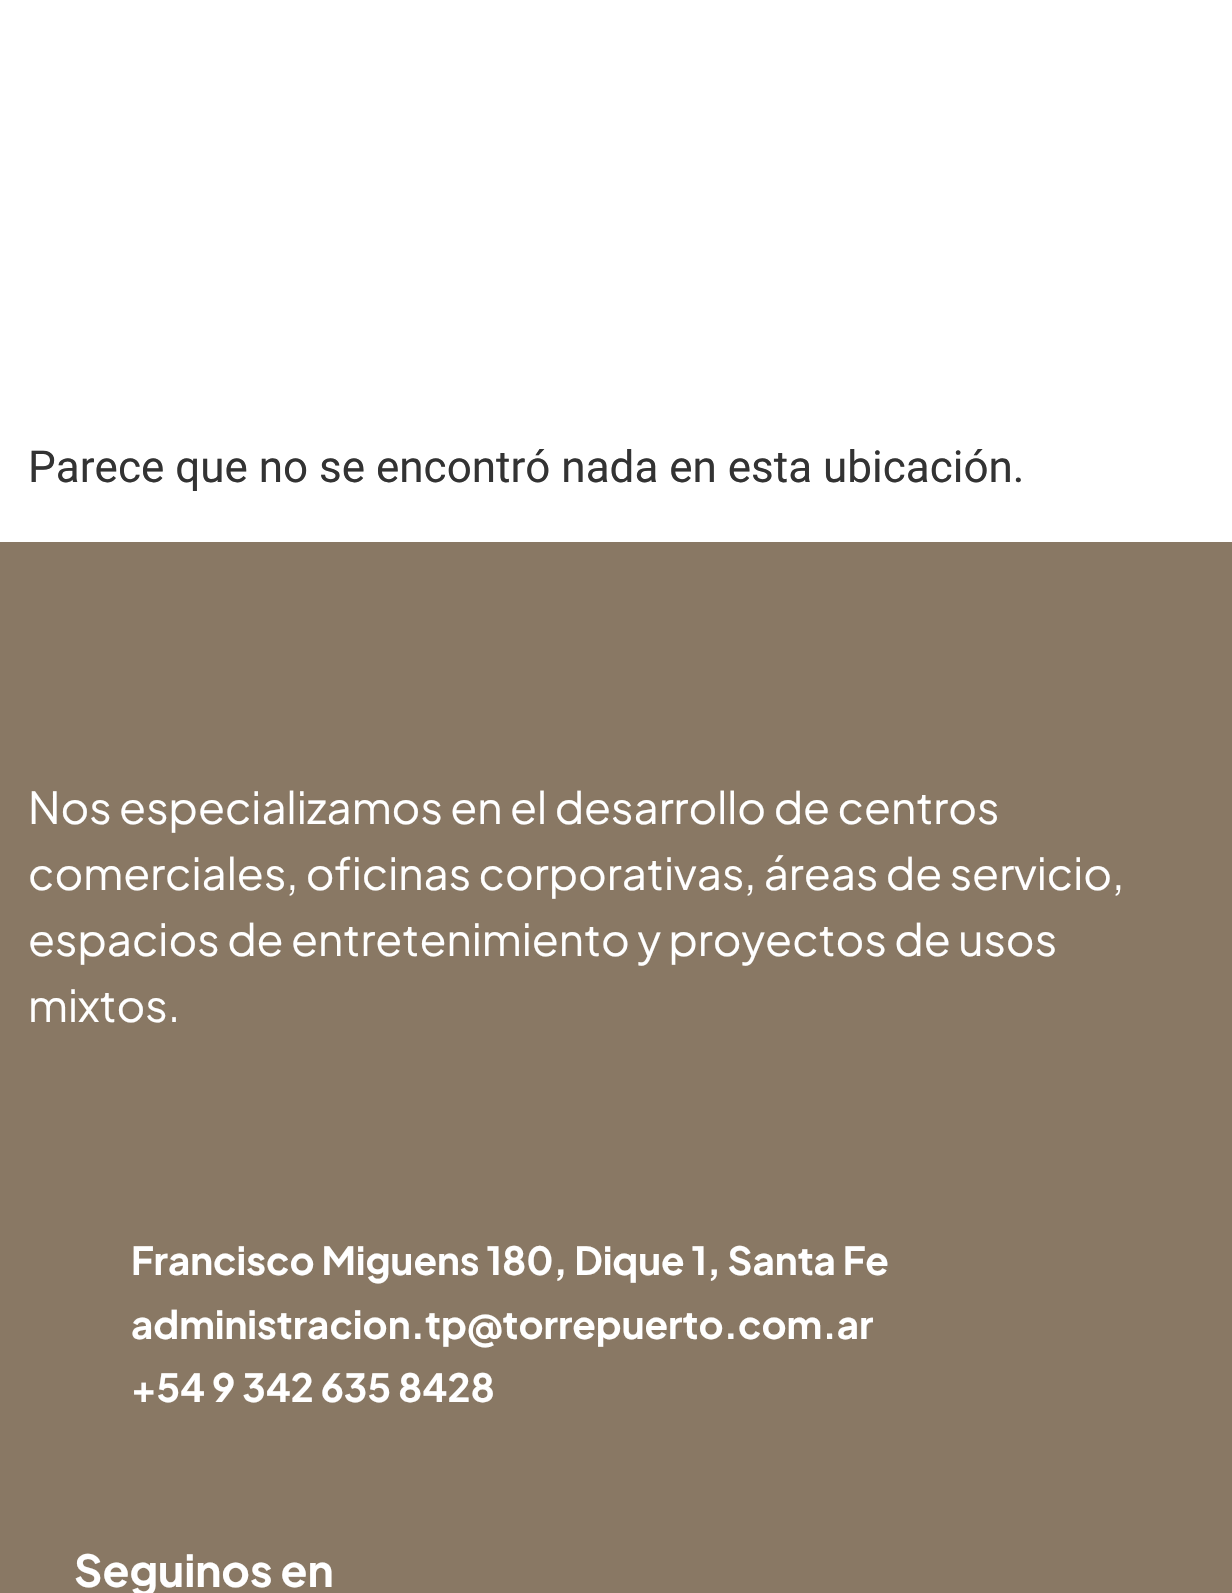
void draw(SkCanvas* canvas) {
    SkPaint paint;
    paint.setAntiAlias(true);
    canvas->clear(0xFFFFFFFF);
    SkFont font1(fontMgr->matchFamilyStyle("Roboto", SkFontStyle::Normal()), 44);
    font1.setSubpixel(true);
    paint.setColor(0xFF333333);
    canvas->drawString("Parece que no se encontró nada en esta ubicación.", 28, 482, font1, paint);
    paint.setColor(0xFF897864);
    canvas->drawRect(SkRect::MakeXYWH(0, 542, 1232, 1051), paint);
    SkFont font2(fontMgr->matchFamilyStyle("Plus Jakarta Sans", SkFontStyle::Normal()), 44);
    font2.setSubpixel(true);
    paint.setColor(0xFFFFFFFF);
    canvas->drawString("Nos especializamos en el desarrollo de centros", 28, 824, font2, paint);
    canvas->drawString("comerciales, oficinas corporativas, áreas de servicio,", 28, 890, font2, paint);
    canvas->drawString("espacios de entretenimiento y proyectos de usos", 28, 956, font2, paint);
    canvas->drawString("mixtos.", 28, 1022, font2, paint);
    SkFont font3(fontMgr->matchFamilyStyle("Plus Jakarta Sans", SkFontStyle::Bold()), 38.5f);
    font3.setSubpixel(true);
    canvas->drawString("Francisco Miguens 180, Dique 1, Santa Fe", 131, 1275, font3, paint);
    canvas->drawString("administracion.tp@torrepuerto.com.ar", 131, 1339, font3, paint);
    canvas->drawString("+54 9 342 635 8428", 131, 1402, font3, paint);
    SkFont font4(fontMgr->matchFamilyStyle("Plus Jakarta Sans", SkFontStyle::Bold()), 44);
    font4.setSubpixel(true);
    canvas->drawString("Seguinos en", 74, 1587, font4, paint);
}
